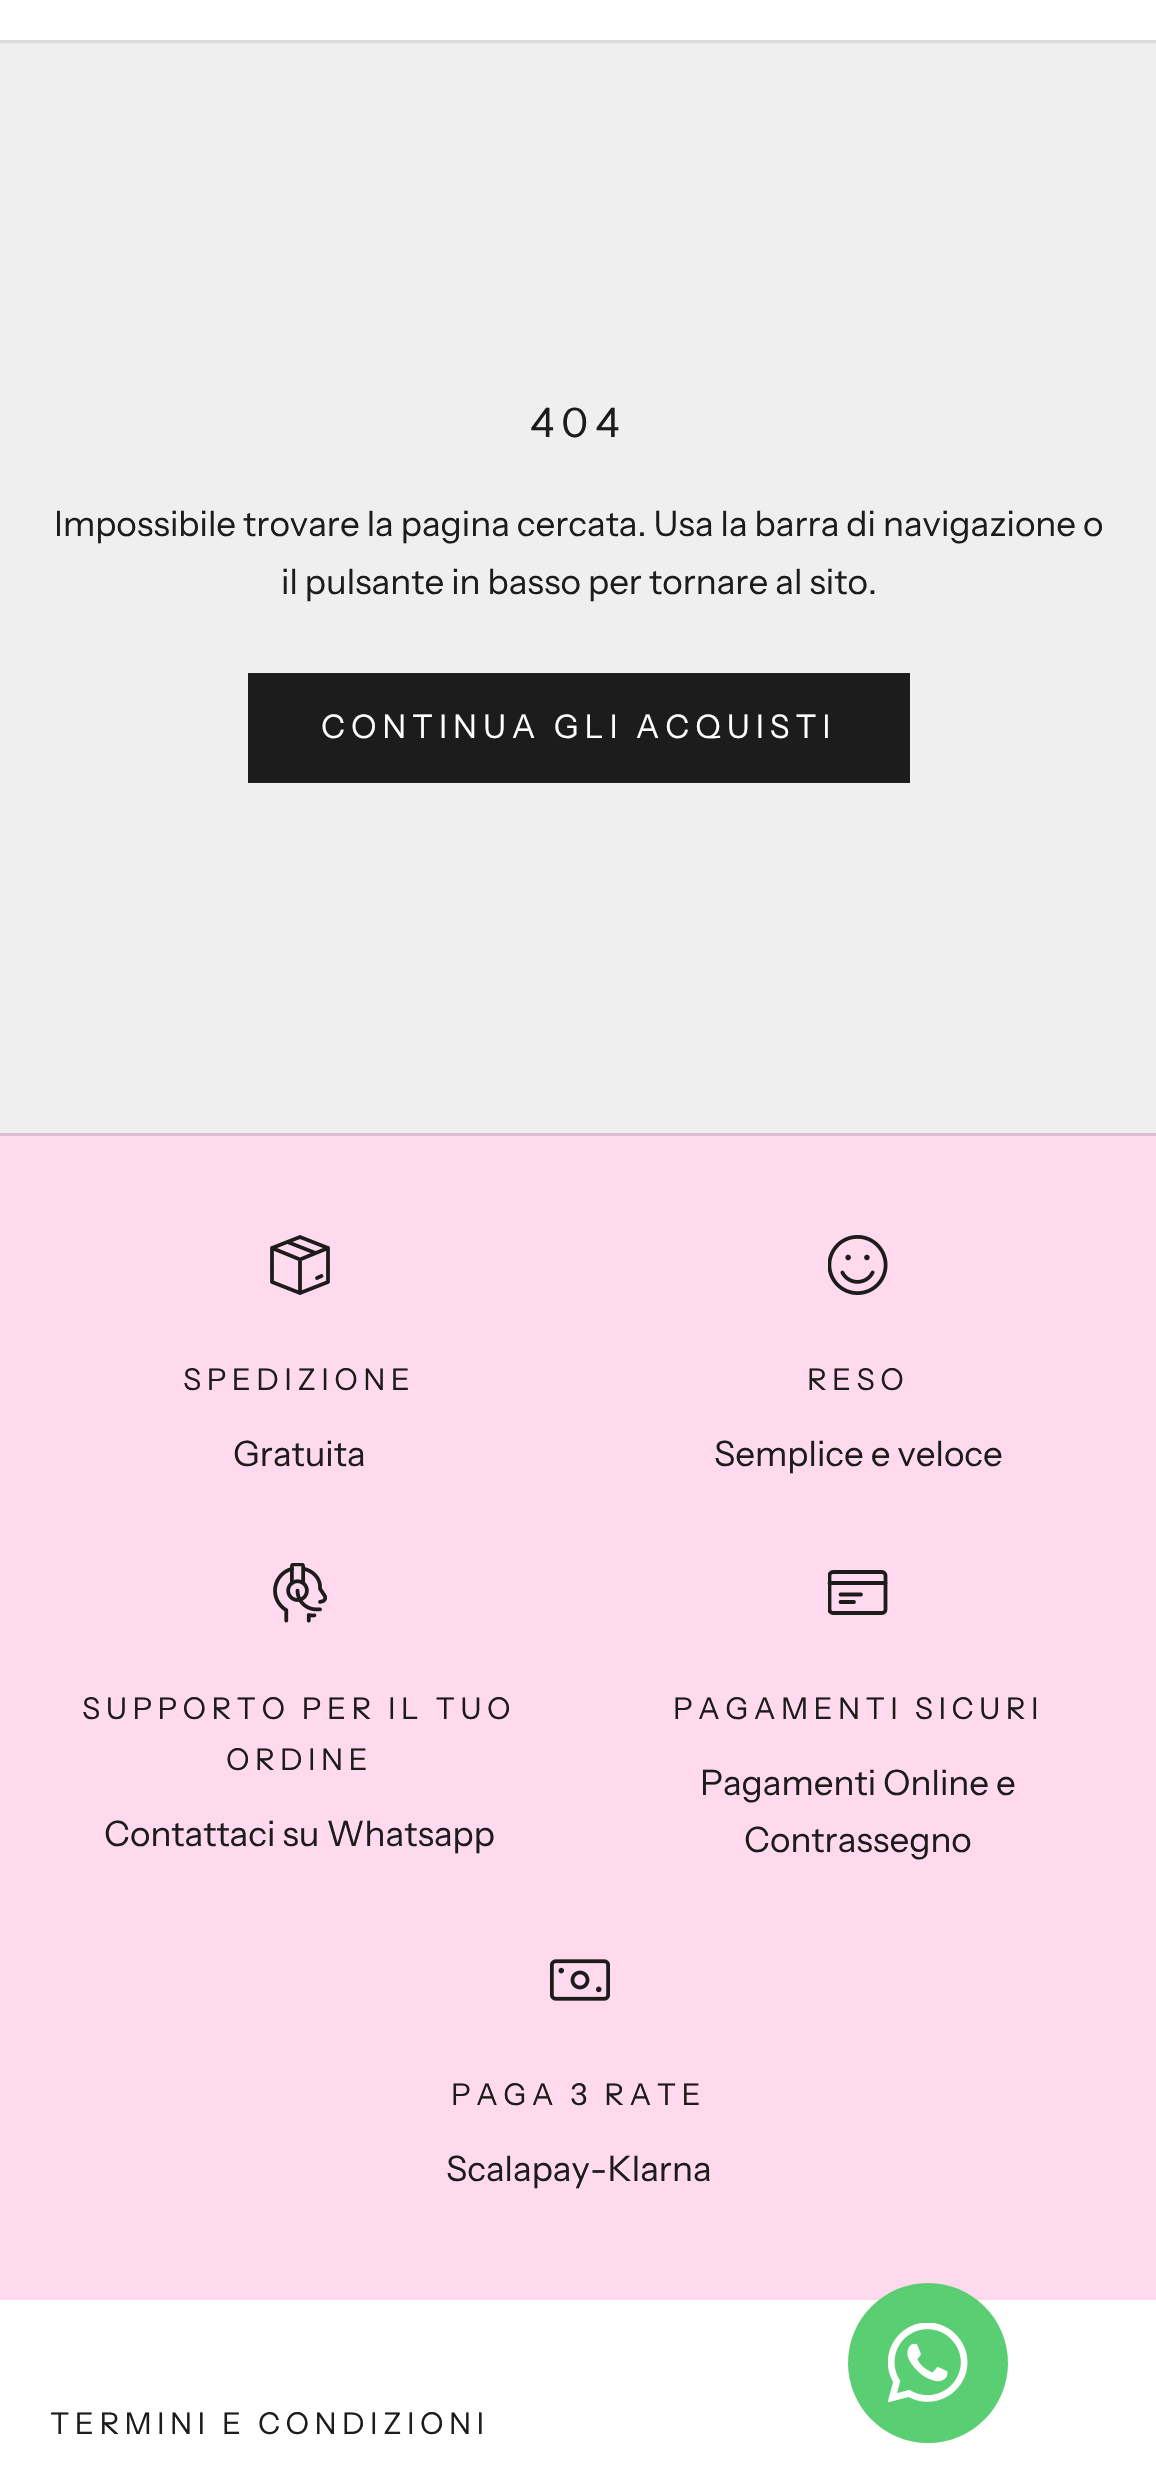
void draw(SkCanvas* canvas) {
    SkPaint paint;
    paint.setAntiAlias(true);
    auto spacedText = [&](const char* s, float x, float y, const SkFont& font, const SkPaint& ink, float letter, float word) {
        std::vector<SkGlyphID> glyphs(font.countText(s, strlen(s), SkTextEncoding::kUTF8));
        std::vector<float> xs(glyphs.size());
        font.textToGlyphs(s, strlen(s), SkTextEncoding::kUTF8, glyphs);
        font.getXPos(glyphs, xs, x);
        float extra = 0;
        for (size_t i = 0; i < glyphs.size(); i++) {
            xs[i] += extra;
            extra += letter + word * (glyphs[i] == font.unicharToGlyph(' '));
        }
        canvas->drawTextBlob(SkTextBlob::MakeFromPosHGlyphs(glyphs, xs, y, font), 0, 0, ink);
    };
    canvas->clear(0xFFEFEFEF);
    paint.setColor(0xFFFFFFFF);
    canvas->drawRect(SkRect::MakeXYWH(0, 0, 1156, 40), paint);
    paint.setColor(0xFFDDDDDD);
    canvas->drawRect(SkRect::MakeXYWH(0, 40, 1156, 3), paint);
    SkFont font1(fontMgr->matchFamilyStyle("Instrument Sans", SkFontStyle::Normal()), 40.5f);
    font1.setSubpixel(true);
    paint.setColor(0xFF1C1C1C);
    spacedText("404", 530, 437, font1, paint, 7, 0);
    SkFont font2(fontMgr->matchFamilyStyle("Instrument Sans", SkFontStyle::Normal()), 35);
    font2.setSubpixel(true);
    canvas->drawString("Impossibile trovare la pagina cercata. Usa la barra di navigazione o", 54, 536, font2, paint);
    canvas->drawString("il pulsante in basso per tornare al sito.", 281, 594, font2, paint);
    canvas->drawRect(SkRect::MakeXYWH(249.5f, 674.5f, 659, 107), paint);
    paint.setStyle(SkPaint::kStroke_Style);
    paint.setStrokeWidth(3);
    canvas->drawRect(SkRect::MakeXYWH(249.5f, 674.5f, 659, 107), paint);
    SkFont font3(fontMgr->matchFamilyStyle("Instrument Sans", SkFontStyle::Normal()), 32.5f);
    font3.setSubpixel(true);
    paint.setStyle(SkPaint::kFill_Style);
    paint.setColor(0xFFFFFFFF);
    spacedText("CONTINUA GLI ACQUISTI", 321, 738, font3, paint, 5.85f, 0);
    paint.setColor(0xFFFFDAEE);
    canvas->drawRect(SkRect::MakeXYWH(0, 1136, 1156, 1164), paint);
    paint.setColor(0xFFDDBDCE);
    canvas->drawRect(SkRect::MakeXYWH(0, 1133, 1156, 3), paint);
    paint.setStyle(SkPaint::kStroke_Style);
    paint.setStrokeWidth(3.8f);
    paint.setStrokeCap(SkPaint::kRound_Cap);
    paint.setStrokeJoin(SkPaint::kRound_Join);
    paint.setColor(0xFF1C1C1C);
    canvas->drawPath(SkPathBuilder().moveTo(272, 1248).lineTo(300, 1259.5f).lineTo(328, 1248).lineTo(300, 1237).close().moveTo(272, 1248).lineTo(272, 1282).lineTo(300, 1293).lineTo(300, 1259.5f).close().moveTo(328, 1248).lineTo(328, 1282).lineTo(300, 1293).lineTo(300, 1259.5f).close().moveTo(315.5f, 1253).lineTo(287.5f, 1242).moveTo(321.5f, 1276).lineTo(317, 1278).detach(), paint);
    SkFont font4(fontMgr->matchFamilyStyle("Instrument Sans", SkFontStyle::Normal()), 30);
    font4.setSubpixel(true);
    paint.setStyle(SkPaint::kFill_Style);
    spacedText("SPEDIZIONE", 183, 1390, font4, paint, 5.4f, 0);
    canvas->drawString("Gratuita", 233, 1466, font2, paint);
    canvas->drawImageRect(SkImages::DeferredFromEncodedData(SkData::MakeFromFileName("img1.png")), SkRect::MakeXYWH(828, 1235, 60, 60), SkSamplingOptions());
    spacedText("RESO", 807, 1390, font4, paint, 5.4f, 0);
    canvas->drawString("Semplice e veloce", 714, 1466, font2, paint);
    canvas->drawImageRect(SkImages::DeferredFromEncodedData(SkData::MakeFromFileName("img2.png")), SkRect::MakeXYWH(273, 1563, 55, 60), SkSamplingOptions());
    spacedText("SUPPORTO PER IL TUO", 82, 1719, font4, paint, 5.4f, 0);
    spacedText("ORDINE", 226, 1770, font4, paint, 5.4f, 0);
    canvas->drawString("Contattaci su Whatsapp", 104, 1846, font2, paint);
    canvas->save();
    canvas->clipRect(SkRect::MakeXYWH(828, 1563, 60, 60));
    paint.setStyle(SkPaint::kStroke_Style);
    canvas->drawPath(SkPathBuilder().moveTo(829.5f, 1575.5f).cubicTo(829.5f, 1573.5f, 831, 1572, 833, 1572).lineTo(882, 1572).cubicTo(884, 1572, 885.5f, 1573.5f, 885.5f, 1575.5f).lineTo(885.5f, 1609.5f).cubicTo(885.5f, 1611.5f, 884, 1613, 882, 1613).lineTo(833, 1613).cubicTo(831, 1613, 829.5f, 1611.5f, 829.5f, 1609.5f).close().detach(), paint);
    canvas->restore();
    canvas->drawPath(SkPathBuilder().moveTo(829.5f, 1583).lineTo(885.5f, 1583).moveTo(840.5f, 1594.5f).lineTo(861, 1594.5f).moveTo(840.5f, 1602).lineTo(854, 1602).detach(), paint);
    paint.setStyle(SkPaint::kFill_Style);
    spacedText("PAGAMENTI SICURI", 673, 1719, font4, paint, 5.4f, 0);
    canvas->drawString("Pagamenti Online e", 700, 1795, font2, paint);
    canvas->drawString("Contrassegno", 744, 1852, font2, paint);
    canvas->drawImageRect(SkImages::DeferredFromEncodedData(SkData::MakeFromFileName("img3.png")), SkRect::MakeXYWH(550, 1959, 60, 42), SkSamplingOptions());
    spacedText("PAGA 3 RATE", 451, 2105, font4, paint, 5.4f, 0);
    canvas->drawString("Scalapay-Klarna", 446, 2181, font2, paint);
    paint.setColor(0xFFFFFFFF);
    canvas->drawRect(SkRect::MakeXYWH(0, 2300, 1156, 182), paint);
    paint.setColor(0xFF1C1C1C);
    spacedText("TERMINI E CONDIZIONI", 50, 2434, font4, paint, 5.4f, 0);
    paint.setColor(0xFF59CE72);
    canvas->drawCircle(928, 2363, 80, paint);
    canvas->drawImageRect(SkImages::DeferredFromEncodedData(SkData::MakeFromFileName("img4.png")), SkRect::MakeXYWH(888, 2323, 80, 80), SkSamplingOptions());
}
